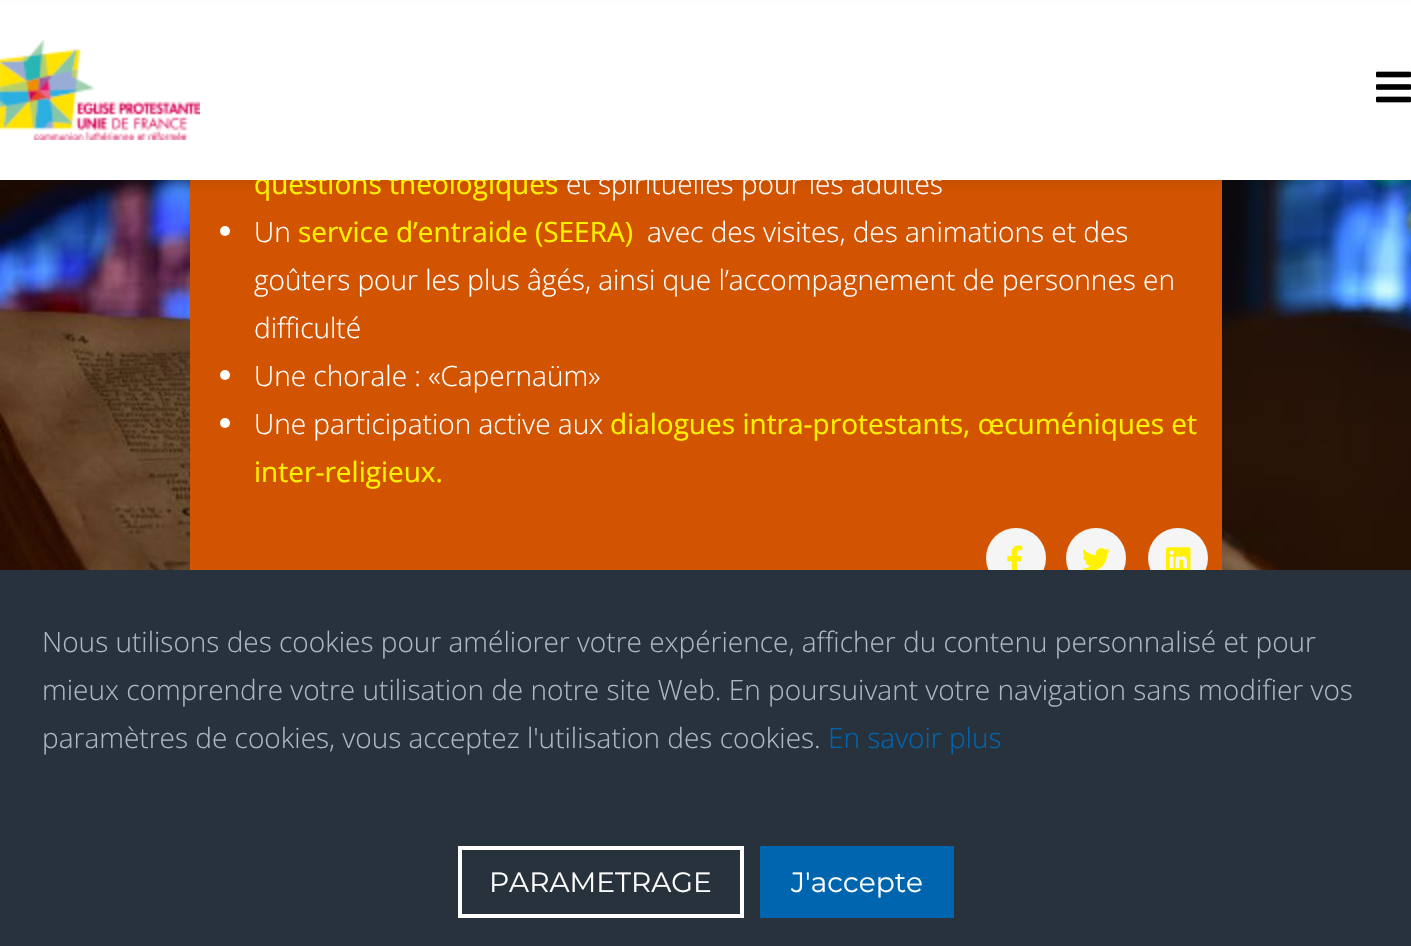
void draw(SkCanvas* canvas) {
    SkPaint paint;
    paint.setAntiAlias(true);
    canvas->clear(0xFFFFFFFF);
    canvas->drawImageRect(SkImages::DeferredFromEncodedData(SkData::MakeFromFileName("img3.png")), SkRect::MakeXYWH(0, 180, 1411, 390), SkSamplingOptions());
    paint.setColor(0xFFD35400);
    canvas->drawRect(SkRect::MakeXYWH(190, 180, 1032, 390), paint);
    paint.setColor(0x0D000000);
    paint.setMaskFilter(SkMaskFilter::MakeBlur(kNormal_SkBlurStyle, 3));
    canvas->drawRect(SkRect::MakeXYWH(0, 6, 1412, 180), paint);
    paint.setMaskFilter(nullptr);
    SkFont font1(fontMgr->matchFamilyStyle("Open Sans", SkFontStyle::Normal()), 28);
    font1.setSubpixel(true);
    paint.setColor(0xFFFFF200);
    canvas->drawString("questions théologiques", 254, 194, font1, paint);
    paint.setColor(0xFFFFFFFF);
    canvas->drawRect(SkRect::MakeXYWH(0, 3, 1411, 177), paint);
    canvas->drawImageRect(SkImages::DeferredFromEncodedData(SkData::MakeFromFileName("img1.png")), SkRect::MakeXYWH(0, 40, 200, 100), SkSamplingOptions());
    canvas->drawImageRect(SkImages::DeferredFromEncodedData(SkData::MakeFromFileName("img2.png")), SkRect::MakeXYWH(1376, 71, 35, 32), SkSamplingOptions());
    SkFont font2(fontMgr->matchFamilyStyle("Open Sans", SkFontStyle(300, SkFontStyle::kNormal_Width, SkFontStyle::kUpright_Slant)), 28);
    font2.setSubpixel(true);
    canvas->drawString("et spirituelles pour les adultes", 566, 194, font2, paint);
    canvas->drawCircle(225, 231, 5, paint);
    canvas->drawString("Un", 254, 242, font2, paint);
    paint.setColor(0xFFFFF200);
    canvas->drawString("service d’entraide (SEERA)", 298, 242, font1, paint);
    paint.setColor(0xFFFFFFFF);
    canvas->drawString("avec des visites, des animations et des", 647, 242, font2, paint);
    canvas->drawString("goûters pour les plus âgés, ainsi que l’accompagnement de personnes en", 254, 290, font2, paint);
    canvas->drawString("difficulté", 254, 338, font2, paint);
    canvas->drawCircle(225, 375, 5, paint);
    canvas->drawString("Une chorale : «Capernaüm»", 254, 386, font2, paint);
    canvas->drawCircle(225, 423, 5, paint);
    canvas->drawString("Une participation active aux", 254, 434, font2, paint);
    paint.setColor(0xFFFFF200);
    canvas->drawString("dialogues intra-protestants, œcuméniques et", 610, 434, font1, paint);
    canvas->drawString("inter-religieux.", 254, 482, font1, paint);
    paint.setColor(0xFFF5F5F5);
    canvas->drawCircle(1016, 558, 30, paint);
    canvas->drawImageRect(SkImages::DeferredFromEncodedData(SkData::MakeFromFileName("img4.png")), SkRect::MakeXYWH(1007, 545, 16, 25), SkSamplingOptions());
    canvas->drawCircle(1096, 558, 30, paint);
    canvas->drawImageRect(SkImages::DeferredFromEncodedData(SkData::MakeFromFileName("img5.png")), SkRect::MakeXYWH(1082, 548, 28, 22), SkSamplingOptions());
    canvas->drawCircle(1178, 558, 30, paint);
    canvas->drawImageRect(SkImages::DeferredFromEncodedData(SkData::MakeFromFileName("img6.png")), SkRect::MakeXYWH(1166, 547, 25, 23), SkSamplingOptions());
    paint.setColor(0xFF27323D);
    canvas->drawRect(SkRect::MakeXYWH(0, 570, 1411, 376), paint);
    paint.setColor(0xFFACB8C1);
    canvas->drawString("Nous utilisons des cookies pour améliorer votre expérience, afficher du contenu personnalisé et pour", 42, 652, font2, paint);
    canvas->drawString("mieux comprendre votre utilisation de notre site Web. En poursuivant votre navigation sans modifier vos", 42, 700, font2, paint);
    canvas->drawString("paramètres de cookies, vous acceptez l'utilisation des cookies.", 42, 748, font2, paint);
    paint.setColor(0xFF0065AF);
    canvas->drawString("En savoir plus", 828, 748, font2, paint);
    paint.setStyle(SkPaint::kStroke_Style);
    paint.setStrokeWidth(4);
    paint.setColor(0xFFFFFFFF);
    canvas->drawRect(SkRect::MakeXYWH(460, 848, 282, 68), paint);
    SkFont font3(fontMgr->matchFamilyStyle("Montserrat", SkFontStyle::Normal()), 28);
    font3.setSubpixel(true);
    paint.setStyle(SkPaint::kFill_Style);
    canvas->drawString("PARAMETRAGE", 489, 892, font3, paint);
    paint.setColor(0xFF0065AF);
    canvas->drawRect(SkRect::MakeXYWH(760, 846, 194, 72), paint);
    paint.setColor(0xFFFFFFFF);
    canvas->drawString("J'accepte", 791, 892, font3, paint);
}
